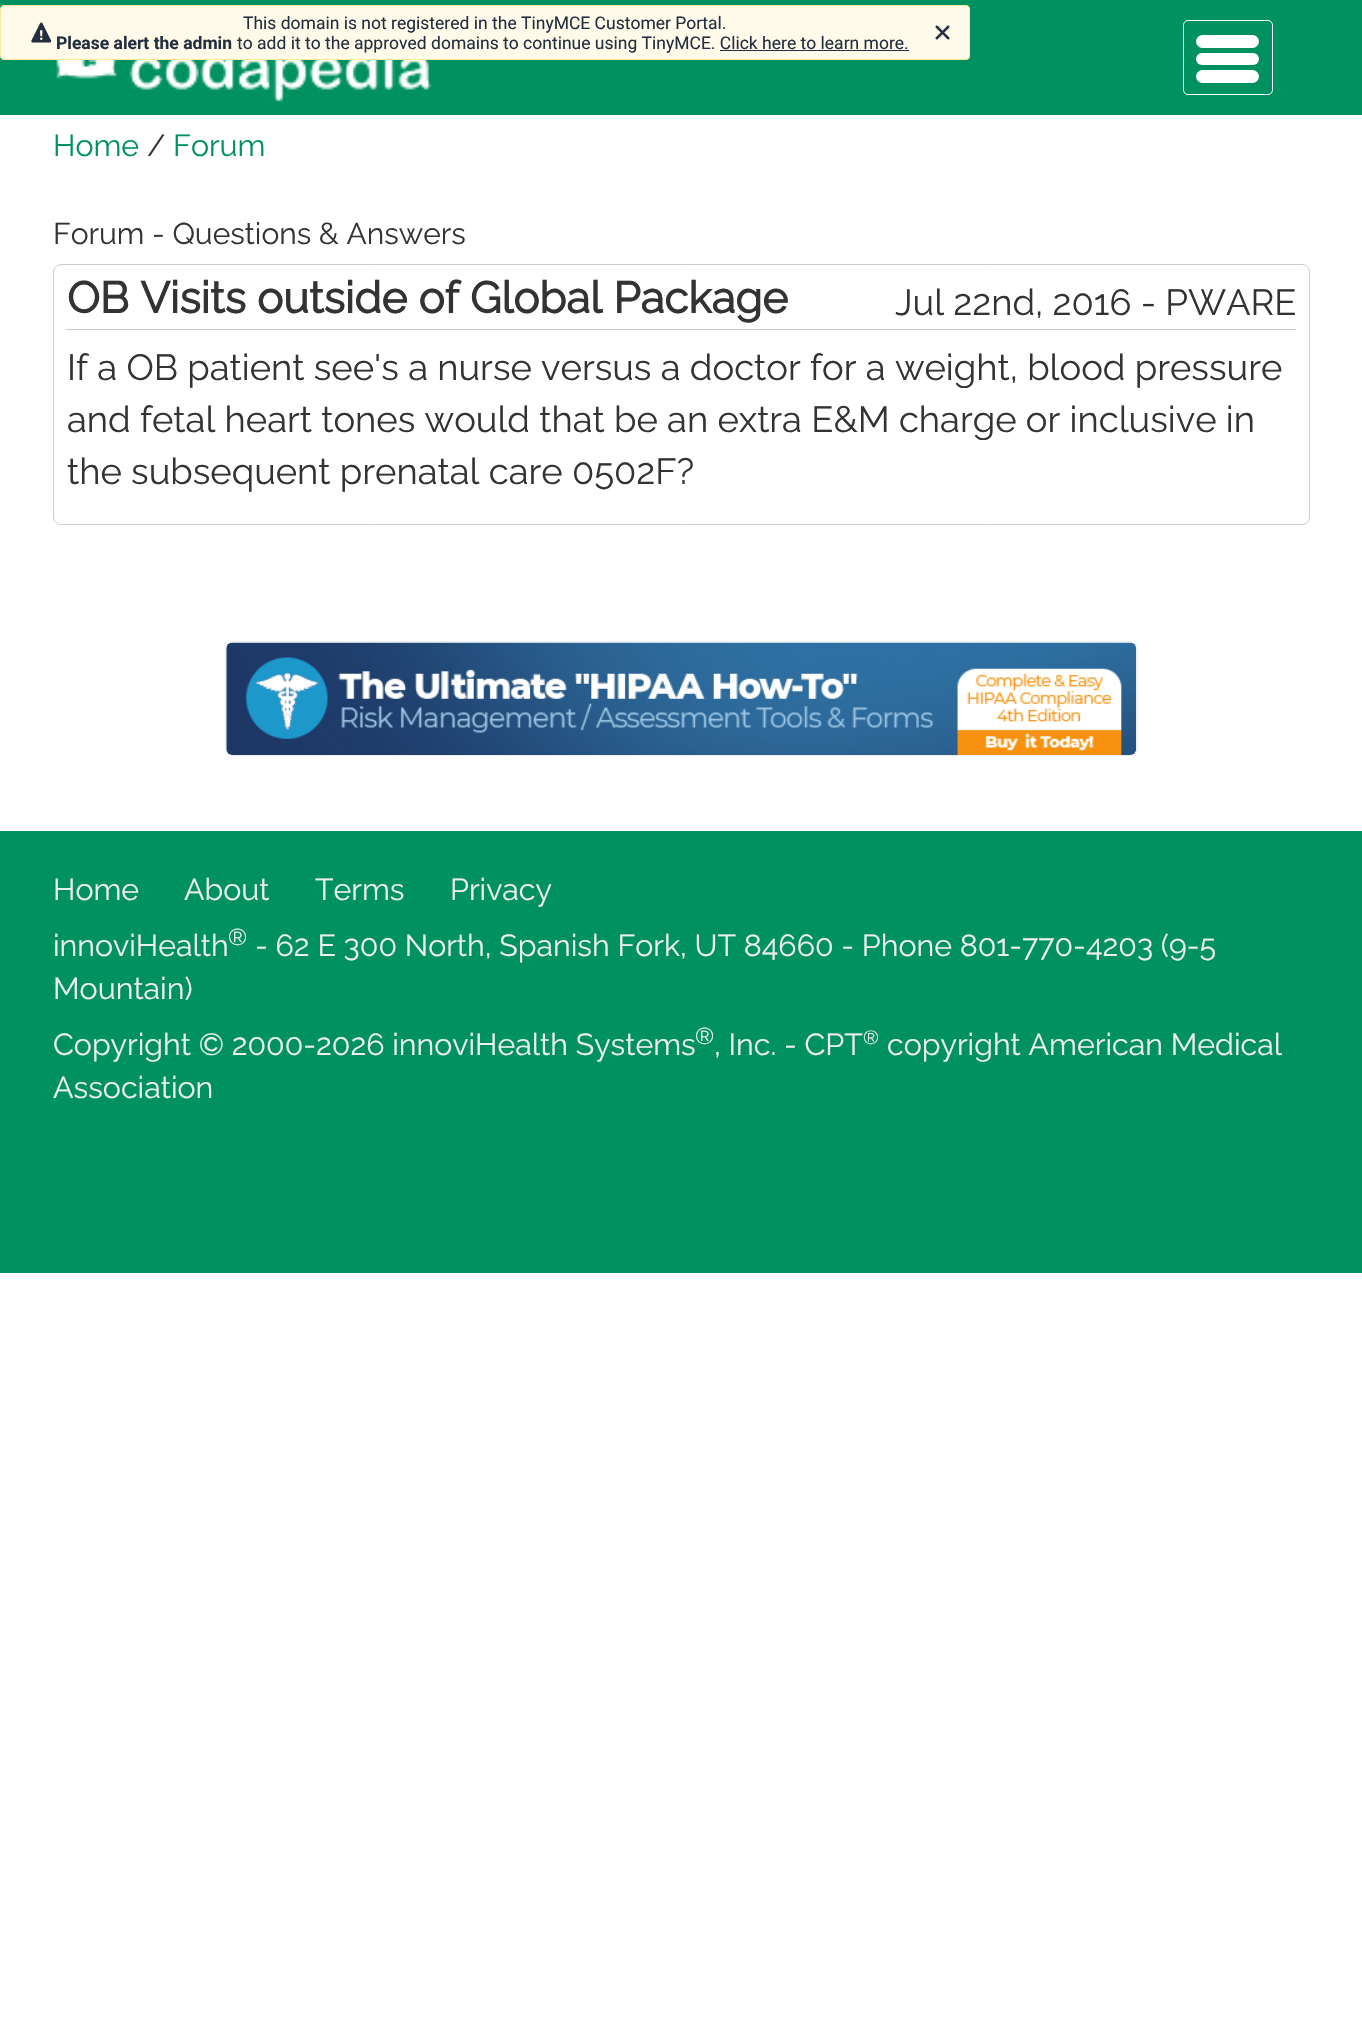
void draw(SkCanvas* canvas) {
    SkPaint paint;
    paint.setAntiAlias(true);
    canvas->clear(0xFFFFFFFF);
    paint.setColor(0xFF009161);
    canvas->drawRect(SkRect::MakeXYWH(0, 0, 1362, 115), paint);
    canvas->drawImageRect(SkImages::DeferredFromEncodedData(SkData::MakeFromFileName("img1.png")), SkRect::MakeXYWH(56, 60, 376, 42), SkSamplingOptions());
    paint.setStyle(SkPaint::kStroke_Style);
    paint.setStrokeWidth(1);
    paint.setColor(0xFFFFFFFF);
    canvas->drawRoundRect(SkRect::MakeXYWH(1183.5f, 20.5f, 89, 74), 4.5f, 4.5f, paint);
    paint.setStyle(SkPaint::kFill_Style);
    canvas->drawRoundRect(SkRect::MakeXYWH(1196, 35, 63, 13), 6.5f, 6.5f, paint);
    canvas->drawRoundRect(SkRect::MakeXYWH(1196, 53, 63, 12), 6, 6, paint);
    canvas->drawRoundRect(SkRect::MakeXYWH(1196, 70, 63, 13), 6.5f, 6.5f, paint);
    paint.setColor(0xFFFFFAEA);
    canvas->drawRoundRect(SkRect::MakeXYWH(0.5f, 5.5f, 969, 54), 3.5f, 3.5f, paint);
    paint.setStyle(SkPaint::kStroke_Style);
    paint.setColor(0xFFFFE89D);
    canvas->drawRoundRect(SkRect::MakeXYWH(0.5f, 5.5f, 969, 54), 3.5f, 3.5f, paint);
    canvas->drawImageRect(SkImages::DeferredFromEncodedData(SkData::MakeFromFileName("img2.png")), SkRect::MakeXYWH(31, 22, 21, 21), SkSamplingOptions());
    SkFont font1(fontMgr->matchFamilyStyle("Roboto", SkFontStyle::Normal()), 17.5f);
    font1.setSubpixel(true);
    paint.setStyle(SkPaint::kFill_Style);
    paint.setColor(0xFF222F3E);
    canvas->drawString("This domain is not registered in the TinyMCE Customer Portal.", 243, 29, font1, paint);
    SkFont font2(fontMgr->matchFamilyStyle("Roboto", SkFontStyle::Bold()), 17.5f);
    font2.setSubpixel(true);
    canvas->drawString("Please alert the admin", 56, 49, font2, paint);
    canvas->drawString("to add it to the approved domains to continue using TinyMCE. Click here to learn more.", 237, 49, font1, paint);
    canvas->drawRect(SkRect::MakeXYWH(720, 50, 189, 1), paint);
    canvas->drawImageRect(SkImages::DeferredFromEncodedData(SkData::MakeFromFileName("img3.png")), SkRect::MakeXYWH(935, 25, 15, 15), SkSamplingOptions());
    SkFont font3(fontMgr->matchFamilyStyle("Raleway", SkFontStyle(100, SkFontStyle::kNormal_Width, SkFontStyle::kUpright_Slant)), 30.35f);
    font3.setSubpixel(true);
    paint.setColor(0xFF009161);
    canvas->drawString("Home", 53, 156, font3, paint);
    paint.setColor(0xFF333333);
    canvas->drawString("/", 147, 156, font3, paint);
    paint.setColor(0xFF009161);
    canvas->drawString("Forum", 173, 156, font3, paint);
    SkFont font4(fontMgr->matchFamilyStyle("Raleway", SkFontStyle(100, SkFontStyle::kNormal_Width, SkFontStyle::kUpright_Slant)), 30);
    font4.setSubpixel(true);
    paint.setColor(0xFF333333);
    canvas->drawString("Forum - Questions & Answers", 53, 244, font4, paint);
    paint.setStyle(SkPaint::kStroke_Style);
    paint.setColor(0xFFCCCCCC);
    canvas->drawRoundRect(SkRect::MakeXYWH(53.5f, 264.5f, 1256, 260), 7.5f, 7.5f, paint);
    paint.setStyle(SkPaint::kFill_Style);
    canvas->drawRect(SkRect::MakeXYWH(66, 329, 1230, 1), paint);
    SkFont font5(fontMgr->matchFamilyStyle("Raleway", SkFontStyle::Bold()), 43.75f);
    font5.setSubpixel(true);
    paint.setColor(0xFF333333);
    canvas->drawString("OB Visits outside of Global Package", 67, 313, font5, paint);
    SkFont font6(fontMgr->matchFamilyStyle("Raleway", SkFontStyle(100, SkFontStyle::kNormal_Width, SkFontStyle::kUpright_Slant)), 36.4f);
    font6.setSubpixel(true);
    canvas->drawString("Jul 22nd, 2016 - PWARE", 895, 315, font6, paint);
    canvas->drawString("If a OB patient see's a nurse versus a doctor for a weight, blood pressure", 67, 380, font6, paint);
    canvas->drawString("and fetal heart tones would that be an extra E&M charge or inclusive in", 67, 432, font6, paint);
    canvas->drawString("the subsequent prenatal care 0502F?", 67, 484, font6, paint);
    paint.setStyle(SkPaint::kStroke_Style);
    paint.setColor(0xFFEEEEEE);
    canvas->drawRoundRect(SkRect::MakeXYWH(225.5f, 641.5f, 912, 114), 7.5f, 7.5f, paint);
    canvas->drawImageRect(SkImages::DeferredFromEncodedData(SkData::MakeFromFileName("img4.png")), SkRect::MakeXYWH(226, 642, 911, 113), SkSamplingOptions());
    paint.setStyle(SkPaint::kFill_Style);
    paint.setColor(0xFF009161);
    canvas->drawRect(SkRect::MakeXYWH(0, 831, 1362, 442), paint);
    paint.setColor(0xFFEEEEEE);
    canvas->drawString("Home", 53, 900, font3, paint);
    canvas->drawString("About", 184, 900, font3, paint);
    canvas->drawString("Terms", 315, 900, font3, paint);
    canvas->drawString("Privacy", 450, 900, font3, paint);
    canvas->drawString("innoviHealth", 53, 956, font3, paint);
    SkFont font7(fontMgr->matchFamilyStyle("Raleway", SkFontStyle(100, SkFontStyle::kNormal_Width, SkFontStyle::kUpright_Slant)), 23);
    font7.setSubpixel(true);
    canvas->drawString("®", 228, 945, font7, paint);
    canvas->drawString("- 62 E 300 North, Spanish Fork, UT 84660 - Phone 801-770-4203 (9-5", 255, 956, font3, paint);
    canvas->drawString("Mountain)", 53, 999, font3, paint);
    canvas->drawString("Copyright © 2000-2026 innoviHealth Systems", 53, 1055, font3, paint);
    canvas->drawString("®", 695, 1044, font7, paint);
    canvas->drawString(", Inc. - CPT", 714, 1055, font3, paint);
    SkFont font8(fontMgr->matchFamilyStyle("Raleway", SkFontStyle(100, SkFontStyle::kNormal_Width, SkFontStyle::kUpright_Slant)), 19);
    font8.setSubpixel(true);
    canvas->drawString("®", 863, 1044, font8, paint);
    canvas->drawString("copyright American Medical", 887, 1055, font3, paint);
    canvas->drawString("Association", 53, 1098, font3, paint);
}
